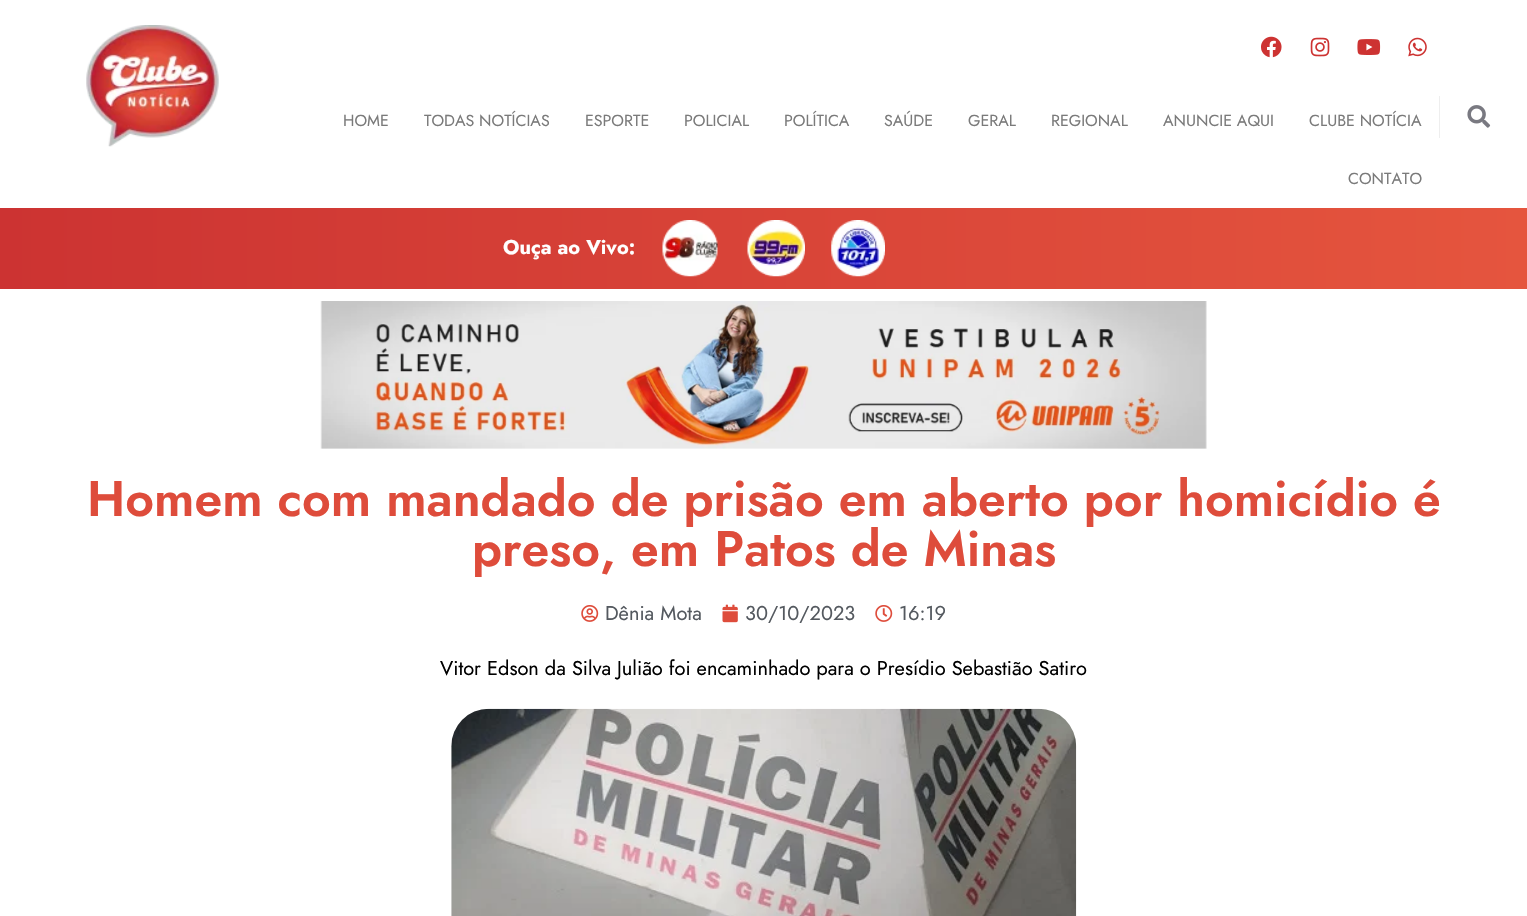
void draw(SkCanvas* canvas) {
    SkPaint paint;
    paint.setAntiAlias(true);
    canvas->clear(0xFFFFFFFF);
    canvas->drawImageRect(SkImages::DeferredFromEncodedData(SkData::MakeFromFileName("img1.png")), SkRect::MakeXYWH(86, 25, 133, 122), SkSamplingOptions());
    canvas->drawImageRect(SkImages::DeferredFromEncodedData(SkData::MakeFromFileName("img2.png")), SkRect::MakeXYWH(1261, 36, 21, 22), SkSamplingOptions());
    canvas->drawImageRect(SkImages::DeferredFromEncodedData(SkData::MakeFromFileName("img3.png")), SkRect::MakeXYWH(1310, 37, 20, 20), SkSamplingOptions());
    canvas->drawImageRect(SkImages::DeferredFromEncodedData(SkData::MakeFromFileName("img4.png")), SkRect::MakeXYWH(1357, 39, 24, 16), SkSamplingOptions());
    canvas->drawImageRect(SkImages::DeferredFromEncodedData(SkData::MakeFromFileName("img5.png")), SkRect::MakeXYWH(1408, 37, 19, 20), SkSamplingOptions());
    SkFont font1(fontMgr->matchFamilyStyle("Jost", SkFontStyle::Normal()), 16);
    font1.setSubpixel(true);
    paint.setColor(0xFF7A7A7A);
    canvas->drawString("HOME", 343, 126, font1, paint);
    canvas->drawString("TODAS NOTÍCIAS", 424, 126, font1, paint);
    canvas->drawString("ESPORTE", 585, 126, font1, paint);
    canvas->drawString("POLICIAL", 684, 126, font1, paint);
    canvas->drawString("POLÍTICA", 784, 126, font1, paint);
    canvas->drawString("SAÚDE", 884, 126, font1, paint);
    canvas->drawString("GERAL", 968, 126, font1, paint);
    canvas->drawString("REGIONAL", 1051, 126, font1, paint);
    canvas->drawString("ANUNCIE AQUI", 1163, 126, font1, paint);
    canvas->drawString("CLUBE NOTÍCIA", 1309, 126, font1, paint);
    canvas->drawString("CONTATO", 1348, 184, font1, paint);
    paint.setColor(0xFFEEEEEE);
    canvas->drawRect(SkRect::MakeXYWH(1439, 96, 1, 42), paint);
    canvas->drawImageRect(SkImages::DeferredFromEncodedData(SkData::MakeFromFileName("img6.png")), SkRect::MakeXYWH(1467, 105, 24, 23), SkSamplingOptions());
    {
        const SkColor colors[] = {0xFFCC3332, 0xFFE5553E};
        const float stops[] = {0, 1};
        const SkPoint ends[] = {{0, 248}, {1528, 248}};
        paint.setShader(SkGradientShader::MakeLinear(ends, colors, stops, 2, SkTileMode::kClamp));
        paint.setAlpha(255);
    }
    canvas->drawRect(SkRect::MakeXYWH(0, 208, 1527, 81), paint);
    SkFont font2(fontMgr->matchFamilyStyle("Jost", SkFontStyle::Bold()), 20);
    font2.setSubpixel(true);
    paint.setShader(nullptr);
    paint.setColor(0xFFFFFFFF);
    canvas->drawString("Ouça ao Vivo:", 503, 254, font2, paint);
    canvas->drawImageRect(SkImages::DeferredFromEncodedData(SkData::MakeFromFileName("img7.png")), SkRect::MakeXYWH(662, 220, 56, 57), SkSamplingOptions());
    canvas->drawImageRect(SkImages::DeferredFromEncodedData(SkData::MakeFromFileName("img8.png")), SkRect::MakeXYWH(747, 220, 58, 57), SkSamplingOptions());
    canvas->drawImageRect(SkImages::DeferredFromEncodedData(SkData::MakeFromFileName("img9.png")), SkRect::MakeXYWH(831, 220, 54, 57), SkSamplingOptions());
    canvas->drawImageRect(SkImages::DeferredFromEncodedData(SkData::MakeFromFileName("img10.png")), SkRect::MakeXYWH(320, 301, 887, 148), SkSamplingOptions());
    SkFont font3(fontMgr->matchFamilyStyle("Jost", SkFontStyle(600, SkFontStyle::kNormal_Width, SkFontStyle::kUpright_Slant)), 50);
    font3.setSubpixel(true);
    paint.setColor(0xFFDE4C3B);
    canvas->drawString("Homem com mandado de prisão em aberto por homicídio é", 87, 516, font3, paint);
    canvas->drawString("preso, em Patos de Minas", 472, 566, font3, paint);
    canvas->drawImageRect(SkImages::DeferredFromEncodedData(SkData::MakeFromFileName("img11.png")), SkRect::MakeXYWH(581, 605, 18, 17), SkSamplingOptions());
    SkFont font4(fontMgr->matchFamilyStyle("Jost", SkFontStyle::Normal()), 20);
    font4.setSubpixel(true);
    paint.setColor(0xFF54595F);
    canvas->drawString("Dênia Mota", 605, 620, font4, paint);
    canvas->drawImageRect(SkImages::DeferredFromEncodedData(SkData::MakeFromFileName("img12.png")), SkRect::MakeXYWH(722, 604, 16, 19), SkSamplingOptions());
    canvas->drawString("30/10/2023", 745, 620, font4, paint);
    canvas->drawImageRect(SkImages::DeferredFromEncodedData(SkData::MakeFromFileName("img13.png")), SkRect::MakeXYWH(875, 605, 18, 17), SkSamplingOptions());
    canvas->drawString("16:19", 899, 620, font4, paint);
    paint.setColor(0xFF000000);
    canvas->drawString("Vitor Edson da Silva Julião foi encaminhado para o Presídio Sebastião Satiro", 440, 675, font4, paint);
    canvas->drawImageRect(SkImages::DeferredFromEncodedData(SkData::MakeFromFileName("img14.png")), SkRect::MakeXYWH(451, 708, 626, 208), SkSamplingOptions());
}
